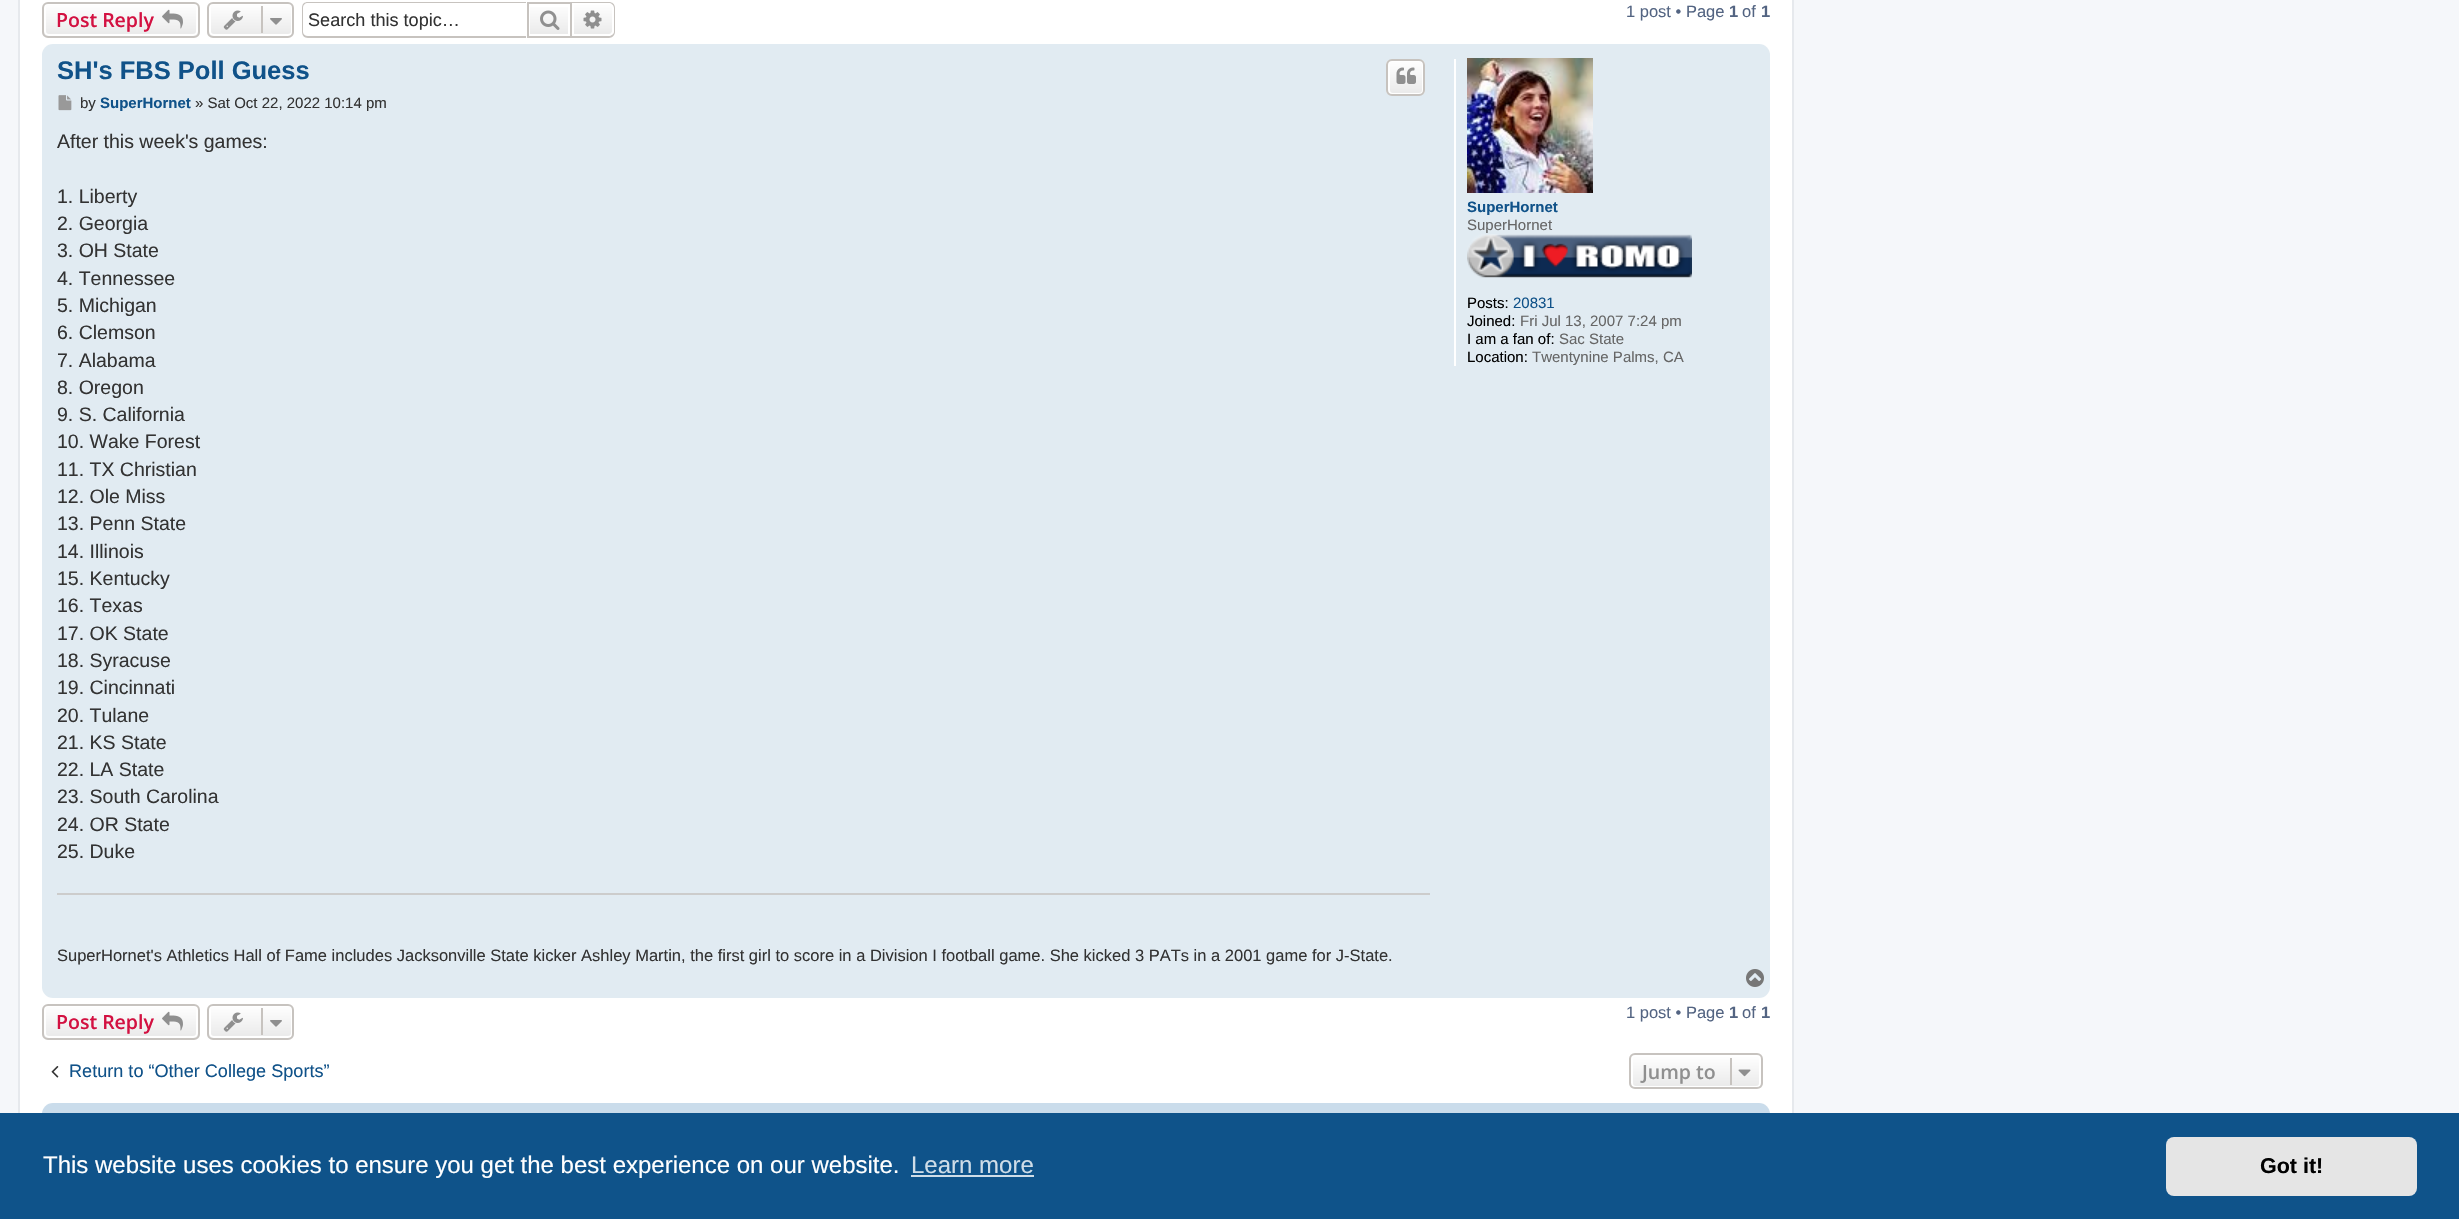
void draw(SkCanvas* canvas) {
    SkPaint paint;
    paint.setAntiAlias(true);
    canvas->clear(0xFFF5F7FA);
    paint.setColor(0xFFFFFFFF);
    canvas->drawRect(SkRect::MakeXYWH(20, 0, 1772, 1113), paint);
    paint.setStyle(SkPaint::kStroke_Style);
    paint.setStrokeWidth(2);
    paint.setColor(0xFFE6E9ED);
    canvas->drawRect(SkRect::MakeXYWH(19, -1, 1774, 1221), paint);
    canvas->save();
    canvas->clipPath(SkPathBuilder().moveTo(48, 2).lineTo(194, 2).cubicTo(197.5f, 2, 200, 4.5f, 200, 8).lineTo(200, 32).cubicTo(200, 35.5f, 197.5f, 38, 194, 38).lineTo(48, 38).cubicTo(44.5f, 38, 42, 35.5f, 42, 32).lineTo(42, 8).cubicTo(42, 4.5f, 44.5f, 2, 48, 2).close().detach(), true);
    paint.setStyle(SkPaint::kFill_Style);
    {
        const SkColor colors[] = {0xFFFFFFFF, 0xFFE9E9E9};
        const float stops[] = {0, 1};
        const SkPoint ends[] = {{121, 3}, {121, 36}};
        paint.setShader(SkGradientShader::MakeLinear(ends, colors, stops, 2, SkTileMode::kClamp));
        paint.setAlpha(255);
    }
    canvas->drawRect(SkRect::MakeXYWH(42, 3, 158, 33), paint);
    canvas->restore();
    paint.setStyle(SkPaint::kStroke_Style);
    paint.setShader(nullptr);
    paint.setColor(0xFFFFFFFF);
    canvas->drawRoundRect(SkRect::MakeXYWH(45, 4, 152, 31), 4, 4, paint);
    paint.setColor(0xFFC7C3BF);
    canvas->drawRoundRect(SkRect::MakeXYWH(43, 3, 156, 34), 5, 5, paint);
    SkFont font1(fontMgr->matchFamilyStyle("Open Sans", SkFontStyle(600, SkFontStyle::kNormal_Width, SkFontStyle::kUpright_Slant)), 19.5f);
    font1.setSubpixel(true);
    paint.setStyle(SkPaint::kFill_Style);
    paint.setColor(0xFFD31141);
    canvas->drawString("Post Reply", 56, 27, font1, paint);
    canvas->drawImageRect(SkImages::DeferredFromEncodedData(SkData::MakeFromFileName("img1.png")), SkRect::MakeXYWH(162, 9, 21, 20), SkSamplingOptions());
    canvas->save();
    canvas->clipPath(SkPathBuilder().moveTo(213, 2).lineTo(288, 2).cubicTo(291.5f, 2, 294, 4.5f, 294, 8).lineTo(294, 32).cubicTo(294, 35.5f, 291.5f, 38, 288, 38).lineTo(213, 38).cubicTo(209.5f, 38, 207, 35.5f, 207, 32).lineTo(207, 8).cubicTo(207, 4.5f, 209.5f, 2, 213, 2).close().detach(), true);
    {
        const SkColor colors[] = {0xFFFFFFFF, 0xFFE9E9E9};
        const float stops[] = {0, 1};
        const SkPoint ends[] = {{251, 3}, {251, 36}};
        paint.setShader(SkGradientShader::MakeLinear(ends, colors, stops, 2, SkTileMode::kClamp));
        paint.setAlpha(255);
    }
    canvas->drawRect(SkRect::MakeXYWH(207, 3, 87, 33), paint);
    canvas->restore();
    paint.setStyle(SkPaint::kStroke_Style);
    paint.setShader(nullptr);
    paint.setColor(0xFFFFFFFF);
    canvas->drawRoundRect(SkRect::MakeXYWH(210, 4, 82, 31), 4, 4, paint);
    paint.setColor(0xFFC7C3BF);
    canvas->drawRoundRect(SkRect::MakeXYWH(208, 3, 85, 34), 5, 5, paint);
    canvas->drawImageRect(SkImages::DeferredFromEncodedData(SkData::MakeFromFileName("img2.png")), SkRect::MakeXYWH(223, 10, 20, 20), SkSamplingOptions());
    paint.setStyle(SkPaint::kFill_Style);
    canvas->drawRect(SkRect::MakeXYWH(261, 6, 2, 27), paint);
    canvas->drawImageRect(SkImages::DeferredFromEncodedData(SkData::MakeFromFileName("img3.png")), SkRect::MakeXYWH(270, 18, 12, 7), SkSamplingOptions());
    canvas->drawPath(SkPathBuilder(SkPathFillType::kEvenOdd).moveTo(308, 2).lineTo(526, 2).lineTo(526, 38).lineTo(308, 38).cubicTo(304, 38, 302, 35, 302, 32).lineTo(302, 8).cubicTo(302, 4, 304, 2, 308, 2).close().moveTo(308, 3).lineTo(526, 3).lineTo(526, 36).lineTo(308, 36).cubicTo(305, 36, 303, 34, 303, 32).lineTo(303, 8).cubicTo(303, 5, 305, 3, 308, 3).close().detach(), paint);
    SkFont font2(fontMgr->matchFamilyStyle("Liberation Sans", SkFontStyle::Normal()), 18.1f);
    font2.setSubpixel(true);
    paint.setColor(0xFF333333);
    canvas->drawString("Search this topic…", 308, 26, font2, paint);
    {
        const SkColor colors[] = {0xFFFFFFFF, 0xFFE9E9E9};
        const float stops[] = {0, 1};
        const SkPoint ends[] = {{549, 3}, {549, 36}};
        paint.setShader(SkGradientShader::MakeLinear(ends, colors, stops, 2, SkTileMode::kClamp));
        paint.setAlpha(255);
    }
    canvas->drawRect(SkRect::MakeXYWH(530, 7, 38, 27), paint);
    paint.setStyle(SkPaint::kStroke_Style);
    paint.setShader(nullptr);
    paint.setColor(0xFFC7C3BF);
    canvas->drawRect(SkRect::MakeXYWH(528, 3, 43, 34), paint);
    canvas->drawImageRect(SkImages::DeferredFromEncodedData(SkData::MakeFromFileName("img4.png")), SkRect::MakeXYWH(540, 10, 20, 20), SkSamplingOptions());
    paint.setStyle(SkPaint::kFill_Style);
    {
        const SkColor colors[] = {0xFFFFFFFF, 0xFFE9E9E9};
        const float stops[] = {0, 1};
        const SkPoint ends[] = {{593, 3}, {593, 36}};
        paint.setShader(SkGradientShader::MakeLinear(ends, colors, stops, 2, SkTileMode::kClamp));
        paint.setAlpha(255);
    }
    canvas->drawPath(SkPathBuilder().moveTo(573, 4).lineTo(609, 4).cubicTo(611, 4, 613, 6, 613, 8).lineTo(613, 31).cubicTo(613, 33, 611, 35, 609, 35).lineTo(573, 35).close().detach(), paint);
    paint.setStyle(SkPaint::kStroke_Style);
    paint.setShader(nullptr);
    paint.setColor(0xFFFFFFFF);
    canvas->drawPath(SkPathBuilder().moveTo(573, 4).lineTo(609, 4).cubicTo(611, 4, 613, 6, 613, 8).lineTo(613, 31).cubicTo(613, 33, 611, 35, 609, 35).lineTo(573, 35).close().detach(), paint);
    paint.setStyle(SkPaint::kFill_Style);
    paint.setColor(0xFFC7C3BF);
    canvas->drawPath(SkPathBuilder(SkPathFillType::kEvenOdd).moveTo(572, 2).lineTo(609, 2).cubicTo(612, 2, 615, 4, 615, 8).lineTo(615, 32).cubicTo(615, 35, 612, 38, 609, 38).lineTo(572, 38).close().moveTo(572, 3).lineTo(609, 3).cubicTo(611, 3, 614, 5, 614, 8).lineTo(614, 32).cubicTo(614, 34, 611, 36, 609, 36).lineTo(572, 36).close().detach(), paint);
    canvas->drawImageRect(SkImages::DeferredFromEncodedData(SkData::MakeFromFileName("img5.png")), SkRect::MakeXYWH(583, 10, 19, 19), SkSamplingOptions());
    SkFont font3(fontMgr->matchFamilyStyle("Liberation Sans", SkFontStyle::Normal()), 16.5f);
    font3.setSubpixel(true);
    paint.setColor(0xFF536482);
    canvas->drawString("1 post • Page", 1626, 17, font3, paint);
    SkFont font4(fontMgr->matchFamilyStyle("Liberation Sans", SkFontStyle::Bold()), 16.5f);
    font4.setSubpixel(true);
    canvas->drawString("1", 1729, 17, font4, paint);
    canvas->drawString("of", 1742, 17, font3, paint);
    canvas->drawString("1", 1761, 17, font4, paint);
    paint.setColor(0xFFE1EBF2);
    canvas->drawRoundRect(SkRect::MakeXYWH(42, 44, 1728, 954), 11, 11, paint);
    SkFont font5(fontMgr->matchFamilyStyle("Liberation Sans", SkFontStyle::Bold()), 25.5f);
    font5.setSubpixel(true);
    paint.setColor(0xFF105289);
    canvas->drawString("SH's FBS Poll Guess", 57, 79, font5, paint);
    canvas->save();
    canvas->clipPath(SkPathBuilder().moveTo(1392, 59).lineTo(1419, 59).cubicTo(1422.5f, 59, 1425, 61.5f, 1425, 65).lineTo(1425, 90).cubicTo(1425, 93.5f, 1422.5f, 96, 1419, 96).lineTo(1392, 96).cubicTo(1388.5f, 96, 1386, 93.5f, 1386, 90).lineTo(1386, 65).cubicTo(1386, 61.5f, 1388.5f, 59, 1392, 59).close().detach(), true);
    {
        const SkColor colors[] = {0xFFFFFFFF, 0xFFE9E9E9};
        const float stops[] = {0, 1};
        const SkPoint ends[] = {{1406, 60}, {1406, 95}};
        paint.setShader(SkGradientShader::MakeLinear(ends, colors, stops, 2, SkTileMode::kClamp));
        paint.setAlpha(255);
    }
    canvas->drawRect(SkRect::MakeXYWH(1386, 60, 39, 35), paint);
    canvas->restore();
    paint.setStyle(SkPaint::kStroke_Style);
    paint.setShader(nullptr);
    paint.setColor(0xFFFFFFFF);
    canvas->drawRoundRect(SkRect::MakeXYWH(1389, 61, 34, 33), 4, 4, paint);
    paint.setColor(0xFFC7C3BF);
    canvas->drawRoundRect(SkRect::MakeXYWH(1387, 60, 37, 35), 5, 5, paint);
    canvas->drawImageRect(SkImages::DeferredFromEncodedData(SkData::MakeFromFileName("img6.png")), SkRect::MakeXYWH(1396, 67, 20, 17), SkSamplingOptions());
    canvas->drawImageRect(SkImages::DeferredFromEncodedData(SkData::MakeFromFileName("img7.png")), SkRect::MakeXYWH(58, 95, 14, 16), SkSamplingOptions());
    SkFont font6(fontMgr->matchFamilyStyle("Liberation Sans", SkFontStyle::Normal()), 15);
    font6.setSubpixel(true);
    paint.setStyle(SkPaint::kFill_Style);
    paint.setColor(0xFF333333);
    canvas->drawString("by", 80, 108, font6, paint);
    SkFont font7(fontMgr->matchFamilyStyle("Liberation Sans", SkFontStyle::Bold()), 15);
    font7.setSubpixel(true);
    paint.setColor(0xFF105289);
    canvas->drawString("SuperHornet", 100, 108, font7, paint);
    paint.setColor(0xFF333333);
    canvas->drawString("» Sat Oct 22, 2022 10:14 pm", 195, 108, font6, paint);
    SkFont font8(fontMgr->matchFamilyStyle("Liberation Sans", SkFontStyle::Normal()), 19.5f);
    font8.setSubpixel(true);
    canvas->drawString("After this week's games:", 57, 148, font8, paint);
    canvas->drawString("1. Liberty", 57, 203, font8, paint);
    canvas->drawString("2. Georgia", 57, 230, font8, paint);
    canvas->drawString("3. OH State", 57, 257, font8, paint);
    canvas->drawString("4. Tennessee", 57, 285, font8, paint);
    canvas->drawString("5. Michigan", 57, 312, font8, paint);
    canvas->drawString("6. Clemson", 57, 339, font8, paint);
    canvas->drawString("7. Alabama", 57, 367, font8, paint);
    canvas->drawString("8. Oregon", 57, 394, font8, paint);
    canvas->drawString("9. S. California", 57, 421, font8, paint);
    canvas->drawString("10. Wake Forest", 57, 448, font8, paint);
    canvas->drawString("11. TX Christian", 57, 476, font8, paint);
    canvas->drawString("12. Ole Miss", 57, 503, font8, paint);
    canvas->drawString("13. Penn State", 57, 530, font8, paint);
    canvas->drawString("14. Illinois", 57, 558, font8, paint);
    canvas->drawString("15. Kentucky", 57, 585, font8, paint);
    canvas->drawString("16. Texas", 57, 612, font8, paint);
    canvas->drawString("17. OK State", 57, 640, font8, paint);
    canvas->drawString("18. Syracuse", 57, 667, font8, paint);
    canvas->drawString("19. Cincinnati", 57, 694, font8, paint);
    canvas->drawString("20. Tulane", 57, 722, font8, paint);
    canvas->drawString("21. KS State", 57, 749, font8, paint);
    canvas->drawString("22. LA State", 57, 776, font8, paint);
    canvas->drawString("23. South Carolina", 57, 803, font8, paint);
    canvas->drawString("24. OR State", 57, 831, font8, paint);
    canvas->drawString("25. Duke", 57, 858, font8, paint);
    paint.setColor(0xFFCCCCCC);
    canvas->drawRect(SkRect::MakeXYWH(57, 893, 1373, 2), paint);
    paint.setColor(0xFF333333);
    canvas->drawString("SuperHornet's Athletics Hall of Fame includes Jacksonville State kicker Ashley Martin, the first girl to score in a Division I football game. She kicked 3 PATs in a 2001 game for J-State.", 57, 961, font3, paint);
    paint.setColor(0xFFFFFFFF);
    canvas->drawRect(SkRect::MakeXYWH(1454, 59, 2, 307), paint);
    canvas->drawImageRect(SkImages::DeferredFromEncodedData(SkData::MakeFromFileName("img8.png")), SkRect::MakeXYWH(1467, 58, 126, 135), SkSamplingOptions());
    paint.setColor(0xFF105289);
    canvas->drawString("SuperHornet", 1467, 212, font7, paint);
    paint.setColor(0xFF666666);
    canvas->drawString("SuperHornet", 1467, 230, font6, paint);
    canvas->drawImageRect(SkImages::DeferredFromEncodedData(SkData::MakeFromFileName("img9.png")), SkRect::MakeXYWH(1467, 234, 225, 44), SkSamplingOptions());
    paint.setColor(0xFF000000);
    canvas->drawString("Posts:", 1467, 308, font6, paint);
    paint.setColor(0xFF105289);
    canvas->drawString("20831", 1513, 308, font6, paint);
    paint.setColor(0xFF000000);
    canvas->drawString("Joined:", 1467, 326, font6, paint);
    paint.setColor(0xFF666666);
    canvas->drawString("Fri Jul 13, 2007 7:24 pm", 1520, 326, font6, paint);
    paint.setColor(0xFF000000);
    canvas->drawString("I am a fan of:", 1467, 344, font6, paint);
    paint.setColor(0xFF666666);
    canvas->drawString("Sac State", 1559, 344, font6, paint);
    paint.setColor(0xFF000000);
    canvas->drawString("Location:", 1467, 362, font6, paint);
    paint.setColor(0xFF666666);
    canvas->drawString("Twentynine Palms, CA", 1532, 362, font6, paint);
    canvas->drawImageRect(SkImages::DeferredFromEncodedData(SkData::MakeFromFileName("img10.png")), SkRect::MakeXYWH(1746, 969, 18, 18), SkSamplingOptions());
    canvas->save();
    canvas->clipPath(SkPathBuilder().moveTo(48, 1004).lineTo(194, 1004).cubicTo(197.5f, 1004, 200, 1006.5f, 200, 1010).lineTo(200, 1034).cubicTo(200, 1037.5f, 197.5f, 1040, 194, 1040).lineTo(48, 1040).cubicTo(44.5f, 1040, 42, 1037.5f, 42, 1034).lineTo(42, 1010).cubicTo(42, 1006.5f, 44.5f, 1004, 48, 1004).close().detach(), true);
    {
        const SkColor colors[] = {0xFFFFFFFF, 0xFFE9E9E9};
        const float stops[] = {0, 1};
        const SkPoint ends[] = {{121, 1005}, {121, 1038}};
        paint.setShader(SkGradientShader::MakeLinear(ends, colors, stops, 2, SkTileMode::kClamp));
        paint.setAlpha(255);
    }
    canvas->drawRect(SkRect::MakeXYWH(42, 1005, 158, 33), paint);
    canvas->restore();
    paint.setStyle(SkPaint::kStroke_Style);
    paint.setShader(nullptr);
    paint.setColor(0xFFFFFFFF);
    canvas->drawRoundRect(SkRect::MakeXYWH(45, 1006, 152, 31), 4, 4, paint);
    paint.setColor(0xFFC7C3BF);
    canvas->drawRoundRect(SkRect::MakeXYWH(43, 1005, 156, 34), 5, 5, paint);
    paint.setStyle(SkPaint::kFill_Style);
    paint.setColor(0xFFD31141);
    canvas->drawString("Post Reply", 56, 1029, font1, paint);
    canvas->drawImageRect(SkImages::DeferredFromEncodedData(SkData::MakeFromFileName("img1.png")), SkRect::MakeXYWH(162, 1011, 21, 20), SkSamplingOptions());
    canvas->save();
    canvas->clipPath(SkPathBuilder().moveTo(213, 1004).lineTo(288, 1004).cubicTo(291.5f, 1004, 294, 1006.5f, 294, 1010).lineTo(294, 1034).cubicTo(294, 1037.5f, 291.5f, 1040, 288, 1040).lineTo(213, 1040).cubicTo(209.5f, 1040, 207, 1037.5f, 207, 1034).lineTo(207, 1010).cubicTo(207, 1006.5f, 209.5f, 1004, 213, 1004).close().detach(), true);
    {
        const SkColor colors[] = {0xFFFFFFFF, 0xFFE9E9E9};
        const float stops[] = {0, 1};
        const SkPoint ends[] = {{251, 1005}, {251, 1038}};
        paint.setShader(SkGradientShader::MakeLinear(ends, colors, stops, 2, SkTileMode::kClamp));
        paint.setAlpha(255);
    }
    canvas->drawRect(SkRect::MakeXYWH(207, 1005, 87, 33), paint);
    canvas->restore();
    paint.setStyle(SkPaint::kStroke_Style);
    paint.setShader(nullptr);
    paint.setColor(0xFFFFFFFF);
    canvas->drawRoundRect(SkRect::MakeXYWH(210, 1006, 82, 31), 4, 4, paint);
    paint.setColor(0xFFC7C3BF);
    canvas->drawRoundRect(SkRect::MakeXYWH(208, 1005, 85, 34), 5, 5, paint);
    canvas->drawImageRect(SkImages::DeferredFromEncodedData(SkData::MakeFromFileName("img2.png")), SkRect::MakeXYWH(223, 1012, 20, 20), SkSamplingOptions());
    paint.setStyle(SkPaint::kFill_Style);
    canvas->drawRect(SkRect::MakeXYWH(261, 1008, 2, 27), paint);
    canvas->drawImageRect(SkImages::DeferredFromEncodedData(SkData::MakeFromFileName("img3.png")), SkRect::MakeXYWH(270, 1020, 12, 7), SkSamplingOptions());
    paint.setColor(0xFF536482);
    canvas->drawString("1 post • Page", 1626, 1018, font3, paint);
    canvas->drawString("1", 1729, 1018, font4, paint);
    canvas->drawString("of", 1742, 1018, font3, paint);
    canvas->drawString("1", 1761, 1018, font4, paint);
    canvas->drawImageRect(SkImages::DeferredFromEncodedData(SkData::MakeFromFileName("img11.png")), SkRect::MakeXYWH(51, 1066, 8, 12), SkSamplingOptions());
    paint.setColor(0xFF105289);
    canvas->drawString("Return to “Other College Sports”", 69, 1077, font2, paint);
    canvas->save();
    canvas->clipPath(SkPathBuilder().moveTo(1635, 1053).lineTo(1757, 1053).cubicTo(1760.5f, 1053, 1763, 1055.5f, 1763, 1059).lineTo(1763, 1083).cubicTo(1763, 1086.5f, 1760.5f, 1089, 1757, 1089).lineTo(1635, 1089).cubicTo(1631.5f, 1089, 1629, 1086.5f, 1629, 1083).lineTo(1629, 1059).cubicTo(1629, 1055.5f, 1631.5f, 1053, 1635, 1053).close().detach(), true);
    {
        const SkColor colors[] = {0xFFFFFFFF, 0xFFE9E9E9};
        const float stops[] = {0, 1};
        const SkPoint ends[] = {{1696, 1055}, {1696, 1088}};
        paint.setShader(SkGradientShader::MakeLinear(ends, colors, stops, 2, SkTileMode::kClamp));
        paint.setAlpha(255);
    }
    canvas->drawRect(SkRect::MakeXYWH(1629, 1055, 134, 33), paint);
    canvas->restore();
    paint.setStyle(SkPaint::kStroke_Style);
    paint.setShader(nullptr);
    paint.setColor(0xFFFFFFFF);
    canvas->drawRoundRect(SkRect::MakeXYWH(1632, 1056, 128, 31), 4, 4, paint);
    paint.setColor(0xFFC7C3BF);
    canvas->drawRoundRect(SkRect::MakeXYWH(1630, 1054, 132, 34), 5, 5, paint);
    paint.setStyle(SkPaint::kFill_Style);
    paint.setColor(0xFF8F8F8F);
    canvas->drawString("Jump to", 1642, 1079, font1, paint);
    paint.setColor(0xFFC7C3BF);
    canvas->drawRect(SkRect::MakeXYWH(1730, 1058, 2, 27), paint);
    canvas->drawImageRect(SkImages::DeferredFromEncodedData(SkData::MakeFromFileName("img12.png")), SkRect::MakeXYWH(1738, 1069, 13, 8), SkSamplingOptions());
    paint.setColor(0xFFCADCEB);
    canvas->drawRoundRect(SkRect::MakeXYWH(42, 1103, 1728, 52), 11, 11, paint);
    paint.setColor(0xFF0F538A);
    canvas->drawRect(SkRect::MakeXYWH(0, 1113, 2459, 106), paint);
    SkFont font9(fontMgr->matchFamilyStyle("Liberation Sans", SkFontStyle::Normal()), 24);
    font9.setSubpixel(true);
    paint.setColor(0xFFFFFFFF);
    canvas->drawString("This website uses cookies to ensure you get the best experience on our website.", 43, 1173, font9, paint);
    paint.setColor(0xFFCFDDE8);
    canvas->drawString("Learn more", 911, 1173, font9, paint);
    canvas->drawRect(SkRect::MakeXYWH(911, 1175, 123, 2), paint);
    paint.setColor(0xFFE5E5E5);
    canvas->drawRoundRect(SkRect::MakeXYWH(2166, 1137, 251, 59), 8, 8, paint);
    SkFont font10(fontMgr->matchFamilyStyle("Liberation Sans", SkFontStyle::Bold()), 21.5f);
    font10.setSubpixel(true);
    paint.setColor(0xFF000000);
    canvas->drawString("Got it!", 2260, 1173, font10, paint);
}
